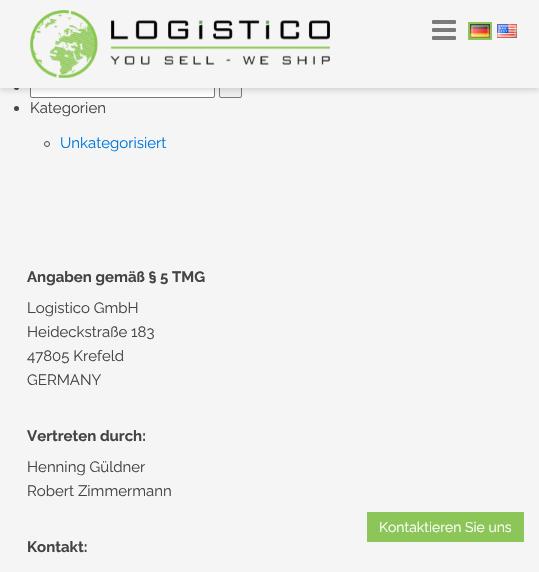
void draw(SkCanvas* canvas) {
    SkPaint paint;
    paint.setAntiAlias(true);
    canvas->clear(0xFFF5F5F5);
    paint.setColor(0xFF444444);
    canvas->drawCircle(16.5f, 87.5f, 2.5f, paint);
    paint.setColor(0xFFFFFFFF);
    canvas->drawRoundRect(SkRect::MakeXYWH(30.5f, 77.5f, 184, 20), 1.5f, 1.5f, paint);
    paint.setStyle(SkPaint::kStroke_Style);
    paint.setStrokeWidth(1);
    paint.setColor(0xFF767676);
    canvas->drawRoundRect(SkRect::MakeXYWH(30.5f, 77.5f, 184, 20), 1.5f, 1.5f, paint);
    paint.setStyle(SkPaint::kFill_Style);
    paint.setColor(0xFFEFEFEF);
    canvas->drawRoundRect(SkRect::MakeXYWH(219.5f, 77.5f, 22, 20), 1.5f, 1.5f, paint);
    paint.setStyle(SkPaint::kStroke_Style);
    paint.setColor(0xFF767676);
    canvas->drawRoundRect(SkRect::MakeXYWH(219.5f, 77.5f, 22, 20), 1.5f, 1.5f, paint);
    paint.setStyle(SkPaint::kFill_Style);
    paint.setColor(0x26323232);
    paint.setMaskFilter(SkMaskFilter::MakeBlur(kNormal_SkBlurStyle, 2.5f));
    canvas->drawRect(SkRect::MakeXYWH(0, 3, 539, 88), paint);
    paint.setMaskFilter(nullptr);
    paint.setColor(0xFFF5F5F5);
    canvas->drawRect(SkRect::MakeXYWH(0, 0, 539, 88), paint);
    canvas->drawImageRect(SkImages::DeferredFromEncodedData(SkData::MakeFromFileName("img1.png")), SkRect::MakeXYWH(30, 10, 300, 68), SkSamplingOptions());
    canvas->drawImageRect(SkImages::DeferredFromEncodedData(SkData::MakeFromFileName("img2.png")), SkRect::MakeXYWH(432, 20, 24, 20), SkSamplingOptions());
    canvas->drawImageRect(SkImages::DeferredFromEncodedData(SkData::MakeFromFileName("img3.png")), SkRect::MakeXYWH(470, 24, 20, 14), SkSamplingOptions());
    paint.setStyle(SkPaint::kStroke_Style);
    paint.setStrokeWidth(2);
    paint.setColor(0xFF8CC558);
    canvas->drawRect(SkRect::MakeXYWH(469, 23, 22, 16), paint);
    canvas->drawImageRect(SkImages::DeferredFromEncodedData(SkData::MakeFromFileName("img4.png")), SkRect::MakeXYWH(497, 24, 20, 14), SkSamplingOptions());
    paint.setStyle(SkPaint::kFill_Style);
    paint.setColor(0xFF444444);
    canvas->drawCircle(16.5f, 108.5f, 2.5f, paint);
    SkFont font1(fontMgr->matchFamilyStyle("Raleway", SkFontStyle::Normal()), 15);
    font1.setSubpixel(true);
    canvas->drawString("Kategorien", 30, 113, font1, paint);
    paint.setStyle(SkPaint::kStroke_Style);
    paint.setStrokeWidth(1);
    canvas->drawCircle(47, 144, 2.5f, paint);
    paint.setStyle(SkPaint::kFill_Style);
    paint.setColor(0xFF0077DD);
    canvas->drawString("Unkategorisiert", 60, 148, font1, paint);
    SkFont font2(fontMgr->matchFamilyStyle("Raleway", SkFontStyle::Bold()), 15);
    font2.setSubpixel(true);
    paint.setColor(0xFF444444);
    canvas->drawString("Angaben gemäß § 5 TMG", 27, 282, font2, paint);
    canvas->drawString("Logistico GmbH", 27, 313, font1, paint);
    canvas->drawString("Heideckstraße 183", 27, 337, font1, paint);
    canvas->drawString("47805 Krefeld", 27, 361, font1, paint);
    canvas->drawString("GERMANY", 27, 385, font1, paint);
    canvas->drawString("Vertreten durch:", 27, 441, font2, paint);
    canvas->drawString("Henning Güldner", 27, 472, font1, paint);
    canvas->drawString("Robert Zimmermann", 27, 496, font1, paint);
    canvas->drawString("Kontakt:", 27, 552, font2, paint);
    paint.setColor(0xFF8CC558);
    canvas->drawRect(SkRect::MakeXYWH(367, 512, 157, 30), paint);
    SkFont font3(fontMgr->matchFamilyStyle("Raleway", SkFontStyle::Normal()), 14);
    font3.setSubpixel(true);
    paint.setColor(0xFFFFFFFF);
    canvas->drawString("Kontaktieren Sie uns", 379, 532, font3, paint);
}
